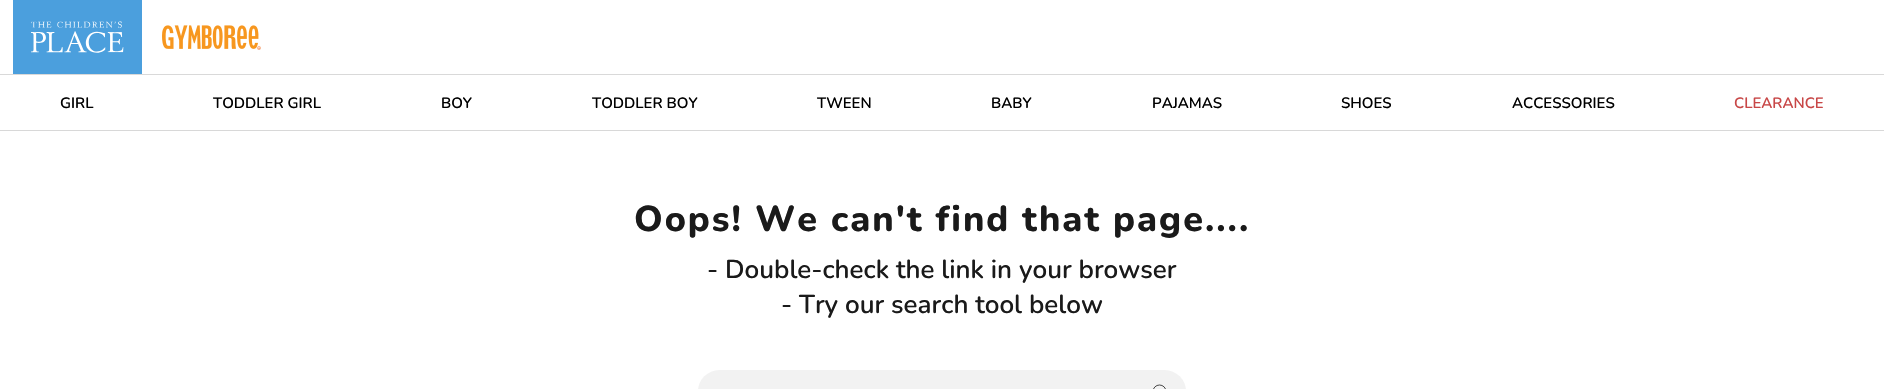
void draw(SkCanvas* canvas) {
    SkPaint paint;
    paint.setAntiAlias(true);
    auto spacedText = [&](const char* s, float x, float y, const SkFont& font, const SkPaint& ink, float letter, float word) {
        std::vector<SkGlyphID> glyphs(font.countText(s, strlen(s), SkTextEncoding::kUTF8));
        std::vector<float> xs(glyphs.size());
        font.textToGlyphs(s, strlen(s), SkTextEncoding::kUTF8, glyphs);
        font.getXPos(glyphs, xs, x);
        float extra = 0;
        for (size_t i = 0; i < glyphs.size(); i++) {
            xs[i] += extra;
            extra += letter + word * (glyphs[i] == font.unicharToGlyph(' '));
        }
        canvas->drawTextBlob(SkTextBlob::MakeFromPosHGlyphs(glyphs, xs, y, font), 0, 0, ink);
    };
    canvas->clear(0xFFFFFFFF);
    paint.setColor(0xFFD9D9D9);
    canvas->drawRect(SkRect::MakeXYWH(0, 74, 1884, 1), paint);
    paint.setColor(0xFF4B9FDD);
    canvas->drawRect(SkRect::MakeXYWH(13, 0, 129, 74), paint);
    canvas->drawImageRect(SkImages::DeferredFromEncodedData(SkData::MakeFromFileName("img1.png")), SkRect::MakeXYWH(31, 21, 93, 32), SkSamplingOptions());
    canvas->drawImageRect(SkImages::DeferredFromEncodedData(SkData::MakeFromFileName("img2.png")), SkRect::MakeXYWH(162, 25, 99, 25), SkSamplingOptions());
    SkFont font1(fontMgr->matchFamilyStyle("Nunito", SkFontStyle(600, SkFontStyle::kNormal_Width, SkFontStyle::kUpright_Slant)), 15);
    font1.setSubpixel(true);
    paint.setColor(0xFF000000);
    canvas->drawString("GIRL", 60, 108, font1, paint);
    canvas->drawString("TODDLER GIRL", 213, 108, font1, paint);
    canvas->drawString("BOY", 441, 108, font1, paint);
    canvas->drawString("TODDLER BOY", 592, 108, font1, paint);
    canvas->drawString("TWEEN", 817, 108, font1, paint);
    canvas->drawString("BABY", 991, 108, font1, paint);
    canvas->drawString("PAJAMAS", 1152, 108, font1, paint);
    canvas->drawString("SHOES", 1341, 108, font1, paint);
    canvas->drawString("ACCESSORIES", 1512, 108, font1, paint);
    paint.setColor(0xFFC84747);
    canvas->drawString("CLEARANCE", 1734, 108, font1, paint);
    paint.setColor(0xFFD8D8D8);
    canvas->drawRect(SkRect::MakeXYWH(0, 130, 1884, 1), paint);
    SkFont font2(fontMgr->matchFamilyStyle("Nunito", SkFontStyle(800, SkFontStyle::kNormal_Width, SkFontStyle::kUpright_Slant)), 36);
    font2.setSubpixel(true);
    paint.setColor(0xFF1A1A1A);
    spacedText("Oops! We can't find that page....", 634, 231, font2, paint, 2, 0);
    SkFont font3(fontMgr->matchFamilyStyle("Nunito", SkFontStyle(600, SkFontStyle::kNormal_Width, SkFontStyle::kUpright_Slant)), 26);
    font3.setSubpixel(true);
    canvas->drawString("- Double-check the link in your browser", 707, 278, font3, paint);
    canvas->drawString("- Try our search tool below", 781, 313, font3, paint);
    paint.setColor(0xFFF2F2F2);
    canvas->drawRoundRect(SkRect::MakeXYWH(698, 370, 488, 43), 24, 24, paint);
    paint.setStyle(SkPaint::kStroke_Style);
    paint.setStrokeWidth(0.7f);
    paint.setColor(0xFF000000);
    canvas->drawCircle(1159.5f, 391.5f, 6.5f, paint);
}
